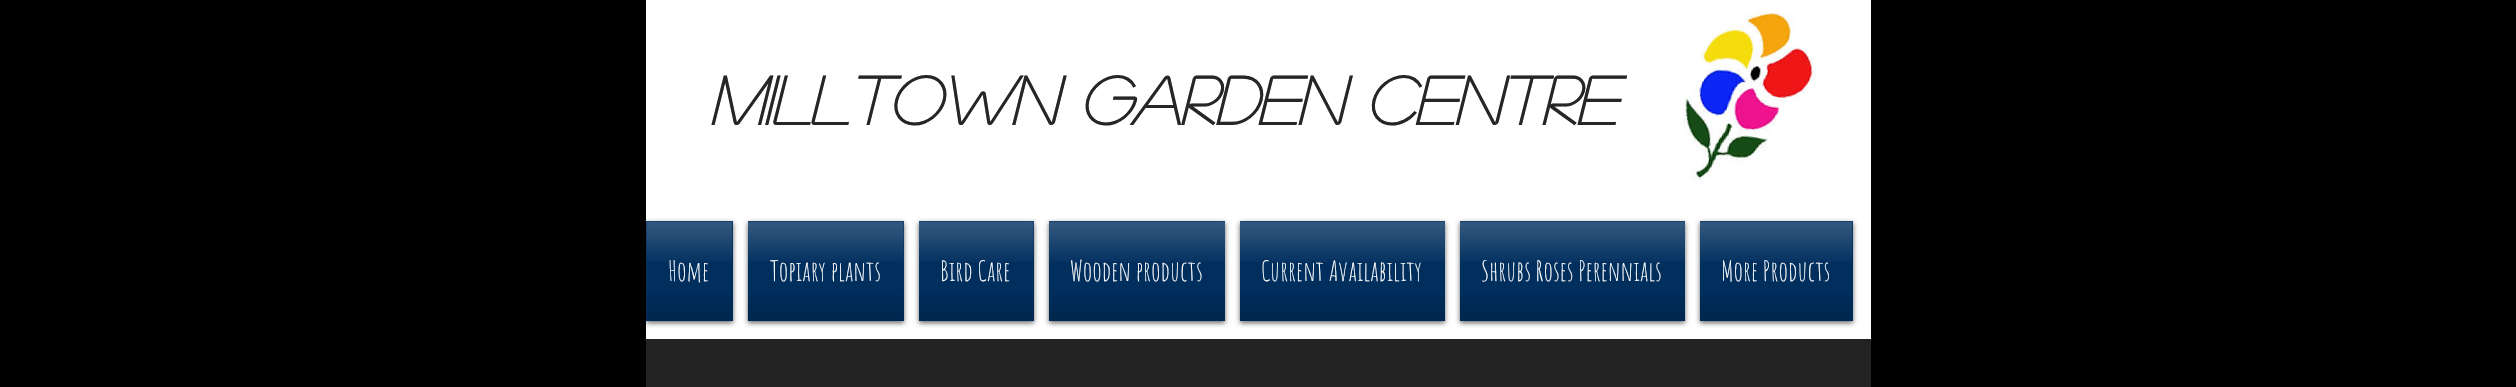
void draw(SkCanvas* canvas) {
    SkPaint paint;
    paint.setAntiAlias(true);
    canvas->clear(0xFF000000);
    paint.setColor(0xFFFFFFFF);
    canvas->drawRect(SkRect::MakeXYWH(646, 0, 1225, 339), paint);
    SkFont font1(fontMgr->matchFamilyStyle("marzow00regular", SkFontStyle::BoldItalic()), 67.5f);
    font1.setSubpixel(true);
    paint.setColor(0xFF282527);
    canvas->drawString("MILLTOWN GARDEN CENTRE", 709, 125, font1, paint);
    canvas->drawImageRect(SkImages::DeferredFromEncodedData(SkData::MakeFromFileName("img1.png")), SkRect::MakeXYWH(1683, 10, 134, 173), SkSamplingOptions());
    paint.setColor(0x99000000);
    paint.setMaskFilter(SkMaskFilter::MakeBlur(kNormal_SkBlurStyle, 2.5f));
    canvas->drawRect(SkRect::MakeXYWH(646, 223, 87, 100), paint);
    paint.setMaskFilter(nullptr);
    paint.setColor(0xFF002E5D);
    canvas->drawRect(SkRect::MakeXYWH(646, 221, 87, 100), paint);
    canvas->drawImageRect(SkImages::DeferredFromEncodedData(SkData::MakeFromFileName("img2.png")), SkRect::MakeXYWH(646, 221, 87, 41), SkSamplingOptions());
    canvas->drawImageRect(SkImages::DeferredFromEncodedData(SkData::MakeFromFileName("img3.png")), SkRect::MakeXYWH(646, 294, 86, 27), SkSamplingOptions());
    SkFont font2(fontMgr->matchFamilyStyle("Amatic SC", SkFontStyle::Normal()), 27.5f);
    font2.setSubpixel(true);
    paint.setColor(0xFFFFFFFF);
    canvas->drawString("Home", 668, 281, font2, paint);
    paint.setColor(0x99000000);
    paint.setMaskFilter(SkMaskFilter::MakeBlur(kNormal_SkBlurStyle, 2.5f));
    canvas->drawRect(SkRect::MakeXYWH(748, 223, 156, 100), paint);
    paint.setMaskFilter(nullptr);
    paint.setColor(0xFF002E5D);
    canvas->drawRect(SkRect::MakeXYWH(748, 221, 156, 100), paint);
    canvas->drawImageRect(SkImages::DeferredFromEncodedData(SkData::MakeFromFileName("img4.png")), SkRect::MakeXYWH(748, 221, 156, 41), SkSamplingOptions());
    canvas->drawImageRect(SkImages::DeferredFromEncodedData(SkData::MakeFromFileName("img5.png")), SkRect::MakeXYWH(747, 294, 157, 27), SkSamplingOptions());
    paint.setColor(0xFFFFFFFF);
    canvas->drawString("Topiary plants", 770, 281, font2, paint);
    paint.setColor(0x99000000);
    paint.setMaskFilter(SkMaskFilter::MakeBlur(kNormal_SkBlurStyle, 2.5f));
    canvas->drawRect(SkRect::MakeXYWH(919, 223, 115, 100), paint);
    paint.setMaskFilter(nullptr);
    paint.setColor(0xFF002E5D);
    canvas->drawRect(SkRect::MakeXYWH(919, 221, 115, 100), paint);
    canvas->drawImageRect(SkImages::DeferredFromEncodedData(SkData::MakeFromFileName("img6.png")), SkRect::MakeXYWH(919, 221, 115, 41), SkSamplingOptions());
    canvas->drawImageRect(SkImages::DeferredFromEncodedData(SkData::MakeFromFileName("img7.png")), SkRect::MakeXYWH(919, 294, 115, 27), SkSamplingOptions());
    paint.setColor(0xFFFFFFFF);
    canvas->drawString("Bird Care", 940, 281, font2, paint);
    paint.setColor(0x99000000);
    paint.setMaskFilter(SkMaskFilter::MakeBlur(kNormal_SkBlurStyle, 2.5f));
    canvas->drawRect(SkRect::MakeXYWH(1049, 223, 176, 100), paint);
    paint.setMaskFilter(nullptr);
    paint.setColor(0xFF002E5D);
    canvas->drawRect(SkRect::MakeXYWH(1049, 221, 176, 100), paint);
    canvas->drawImageRect(SkImages::DeferredFromEncodedData(SkData::MakeFromFileName("img8.png")), SkRect::MakeXYWH(1049, 221, 176, 41), SkSamplingOptions());
    canvas->drawImageRect(SkImages::DeferredFromEncodedData(SkData::MakeFromFileName("img9.png")), SkRect::MakeXYWH(1049, 294, 176, 27), SkSamplingOptions());
    paint.setColor(0xFFFFFFFF);
    canvas->drawString("Wooden products", 1070, 281, font2, paint);
    paint.setColor(0x99000000);
    paint.setMaskFilter(SkMaskFilter::MakeBlur(kNormal_SkBlurStyle, 2.5f));
    canvas->drawRect(SkRect::MakeXYWH(1240, 223, 205, 100), paint);
    paint.setMaskFilter(nullptr);
    paint.setColor(0xFF002E5D);
    canvas->drawRect(SkRect::MakeXYWH(1240, 221, 205, 100), paint);
    canvas->drawImageRect(SkImages::DeferredFromEncodedData(SkData::MakeFromFileName("img10.png")), SkRect::MakeXYWH(1240, 221, 205, 41), SkSamplingOptions());
    canvas->drawImageRect(SkImages::DeferredFromEncodedData(SkData::MakeFromFileName("img11.png")), SkRect::MakeXYWH(1240, 294, 205, 27), SkSamplingOptions());
    paint.setColor(0xFFFFFFFF);
    canvas->drawString("Current Availability", 1261, 281, font2, paint);
    paint.setColor(0x99000000);
    paint.setMaskFilter(SkMaskFilter::MakeBlur(kNormal_SkBlurStyle, 2.5f));
    canvas->drawRect(SkRect::MakeXYWH(1460, 223, 225, 100), paint);
    paint.setMaskFilter(nullptr);
    paint.setColor(0xFF002E5D);
    canvas->drawRect(SkRect::MakeXYWH(1460, 221, 225, 100), paint);
    canvas->drawImageRect(SkImages::DeferredFromEncodedData(SkData::MakeFromFileName("img12.png")), SkRect::MakeXYWH(1460, 221, 225, 41), SkSamplingOptions());
    canvas->drawImageRect(SkImages::DeferredFromEncodedData(SkData::MakeFromFileName("img13.png")), SkRect::MakeXYWH(1460, 294, 225, 27), SkSamplingOptions());
    paint.setColor(0xFFFFFFFF);
    canvas->drawString("Shrubs Roses Perennials", 1481, 281, font2, paint);
    paint.setColor(0x99000000);
    paint.setMaskFilter(SkMaskFilter::MakeBlur(kNormal_SkBlurStyle, 2.5f));
    canvas->drawRect(SkRect::MakeXYWH(1700, 223, 153, 100), paint);
    paint.setMaskFilter(nullptr);
    paint.setColor(0xFF002E5D);
    canvas->drawRect(SkRect::MakeXYWH(1700, 221, 153, 100), paint);
    canvas->drawImageRect(SkImages::DeferredFromEncodedData(SkData::MakeFromFileName("img14.png")), SkRect::MakeXYWH(1700, 221, 153, 41), SkSamplingOptions());
    canvas->drawImageRect(SkImages::DeferredFromEncodedData(SkData::MakeFromFileName("img15.png")), SkRect::MakeXYWH(1700, 294, 152, 27), SkSamplingOptions());
    paint.setColor(0xFFFFFFFF);
    canvas->drawString("More Products", 1721, 281, font2, paint);
    paint.setColor(0xFF232323);
    canvas->drawRect(SkRect::MakeXYWH(646, 339, 1225, 48), paint);
}
